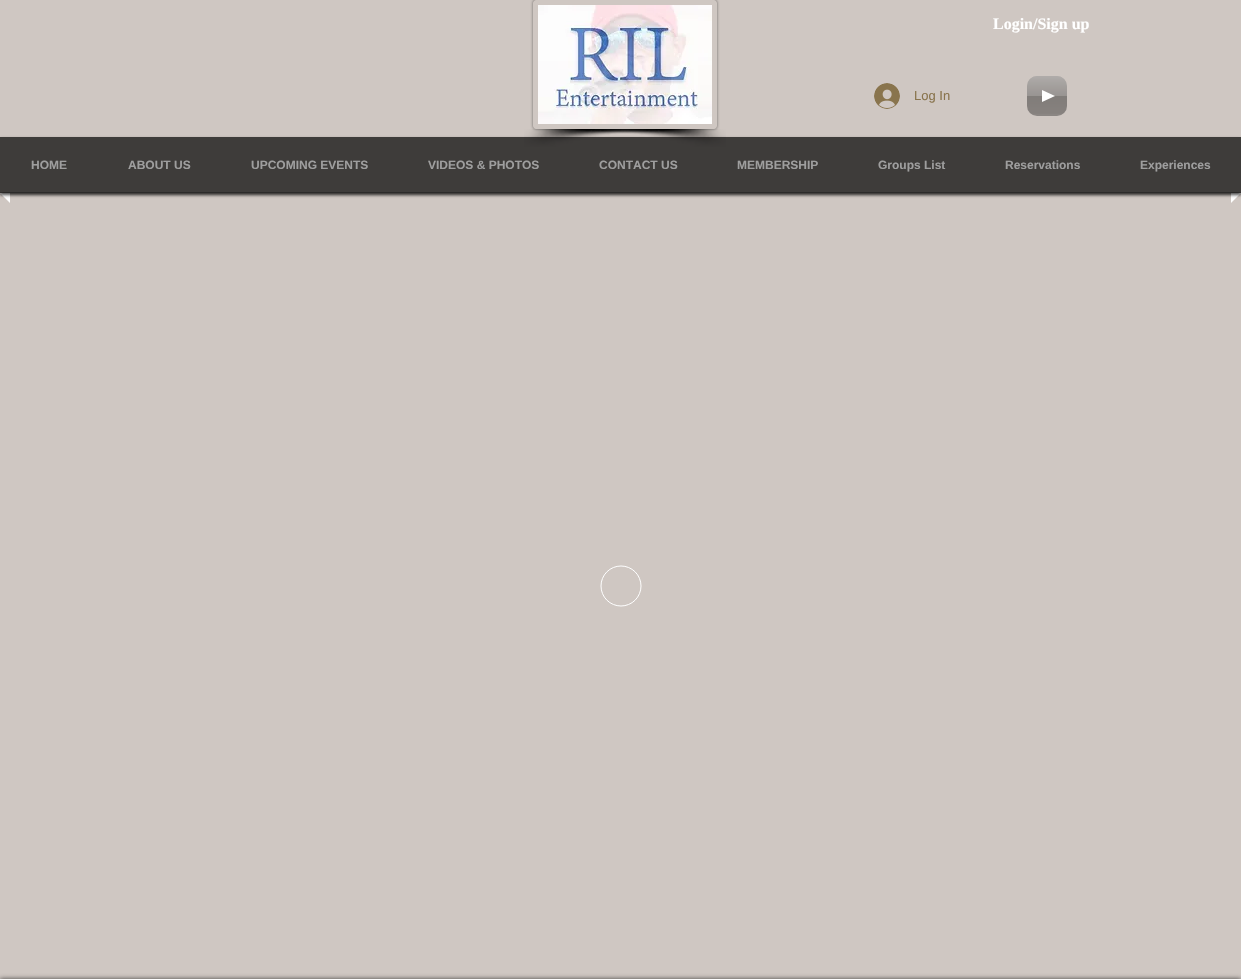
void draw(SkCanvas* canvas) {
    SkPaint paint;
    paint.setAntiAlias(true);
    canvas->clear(0xFFCFC7C2);
    canvas->save();
    canvas->clipRect(SkRect::MakeXYWH(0, 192, 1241, 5));
    paint.setColor(0xB3000000);
    paint.setMaskFilter(SkMaskFilter::MakeBlur(kNormal_SkBlurStyle, 2.5f));
    canvas->drawRect(SkRect::MakeXYWH(0, 0, 1241, 192), paint);
    paint.setMaskFilter(nullptr);
    canvas->restore();
    canvas->save();
    canvas->clipPath(SkPathBuilder(SkPathFillType::kEvenOdd).moveTo(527, 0).lineTo(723, 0).lineTo(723, 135).lineTo(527, 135).close().moveTo(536, 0).lineTo(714, 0).cubicTo(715.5f, 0, 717, 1.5f, 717, 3).lineTo(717, 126).cubicTo(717, 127.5f, 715.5f, 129, 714, 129).lineTo(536, 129).cubicTo(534.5f, 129, 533, 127.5f, 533, 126).lineTo(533, 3).cubicTo(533, 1.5f, 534.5f, 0, 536, 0).close().detach(), true);
    paint.setColor(0x80000000);
    paint.setMaskFilter(SkMaskFilter::MakeBlur(kNormal_SkBlurStyle, 1.5f));
    canvas->drawRoundRect(SkRect::MakeXYWH(533, 0, 184, 129), 3, 3, paint);
    paint.setMaskFilter(nullptr);
    canvas->restore();
    canvas->drawImageRect(SkImages::DeferredFromEncodedData(SkData::MakeFromFileName("img1.png")), SkRect::MakeXYWH(538, 5, 174, 119), SkSamplingOptions());
    canvas->drawImageRect(SkImages::DeferredFromEncodedData(SkData::MakeFromFileName("img2.png")), SkRect::MakeXYWH(524, 129, 149, 18), SkSamplingOptions());
    canvas->drawImageRect(SkImages::DeferredFromEncodedData(SkData::MakeFromFileName("img3.png")), SkRect::MakeXYWH(601, 129, 125, 18), SkSamplingOptions());
    SkFont font1(fontMgr->matchFamilyStyle("Liberation Serif", SkFontStyle::Bold()), 16);
    font1.setSubpixel(true);
    paint.setColor(0xFFFFFFFF);
    canvas->drawString("Login/Sign up", 993, 29, font1, paint);
    canvas->drawImageRect(SkImages::DeferredFromEncodedData(SkData::MakeFromFileName("img4.png")), SkRect::MakeXYWH(874, 83, 26, 26), SkSamplingOptions());
    SkFont font2(fontMgr->matchFamilyStyle("Liberation Sans", SkFontStyle::Normal()), 13);
    font2.setSubpixel(true);
    paint.setColor(0xFF89744D);
    canvas->drawString("Log In", 914, 100, font2, paint);
    paint.setColor(0xFF8B8683);
    canvas->drawRoundRect(SkRect::MakeXYWH(1027, 76, 40, 40), 10, 10, paint);
    canvas->drawImageRect(SkImages::DeferredFromEncodedData(SkData::MakeFromFileName("img5.png")), SkRect::MakeXYWH(1027, 76, 40, 38), SkSamplingOptions());
    paint.setColor(0xFFFFFFFF);
    canvas->drawPath(SkPathBuilder().moveTo(1042, 102).lineTo(1042, 90).lineTo(1055, 96).close().detach(), paint);
    canvas->drawPath(SkPathBuilder().moveTo(0, 193).lineTo(10, 193).lineTo(10, 203).close().detach(), paint);
    canvas->drawPath(SkPathBuilder().moveTo(1231, 193).lineTo(1241, 193).lineTo(1231, 203).close().detach(), paint);
    canvas->save();
    canvas->clipPath(SkPathBuilder(SkPathFillType::kEvenOdd).moveTo(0, 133).lineTo(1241, 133).lineTo(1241, 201).lineTo(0, 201).close().moveTo(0, 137).lineTo(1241, 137).lineTo(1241, 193).lineTo(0, 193).close().detach(), true);
    paint.setColor(0xB3000000);
    paint.setMaskFilter(SkMaskFilter::MakeBlur(kNormal_SkBlurStyle, 1.5f));
    canvas->drawRect(SkRect::MakeXYWH(0, 139, 1241, 56), paint);
    paint.setMaskFilter(nullptr);
    canvas->restore();
    canvas->drawRect(SkRect::MakeXYWH(0, 137, 1241, 56), paint);
    SkFont font3(fontMgr->matchFamilyStyle("Liberation Sans", SkFontStyle::Bold()), 12);
    font3.setSubpixel(true);
    paint.setColor(0xFF9E9E9E);
    canvas->drawString("HOME", 31, 169, font3, paint);
    canvas->drawString("ABOUT US", 128, 169, font3, paint);
    canvas->drawString("UPCOMING EVENTS", 251, 169, font3, paint);
    canvas->drawString("VIDEOS & PHOTOS", 428, 169, font3, paint);
    canvas->drawString("CONTACT US", 599, 169, font3, paint);
    canvas->drawString("MEMBERSHIP", 737, 169, font3, paint);
    canvas->drawString("Groups List", 878, 169, font3, paint);
    canvas->drawString("Reservations", 1005, 169, font3, paint);
    canvas->drawString("Experiences", 1140, 169, font3, paint);
    paint.setStyle(SkPaint::kStroke_Style);
    paint.setStrokeWidth(1);
    paint.setColor(0xFFFFFFFF);
    canvas->drawCircle(621, 586, 20, paint);
    paint.setStyle(SkPaint::kFill_Style);
    paint.setColor(0xB3000000);
    paint.setMaskFilter(SkMaskFilter::MakeBlur(kNormal_SkBlurStyle, 2.5f));
    canvas->drawRect(SkRect::MakeXYWH(0, 979, 1241, 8), paint);
    paint.setMaskFilter(nullptr);
}
